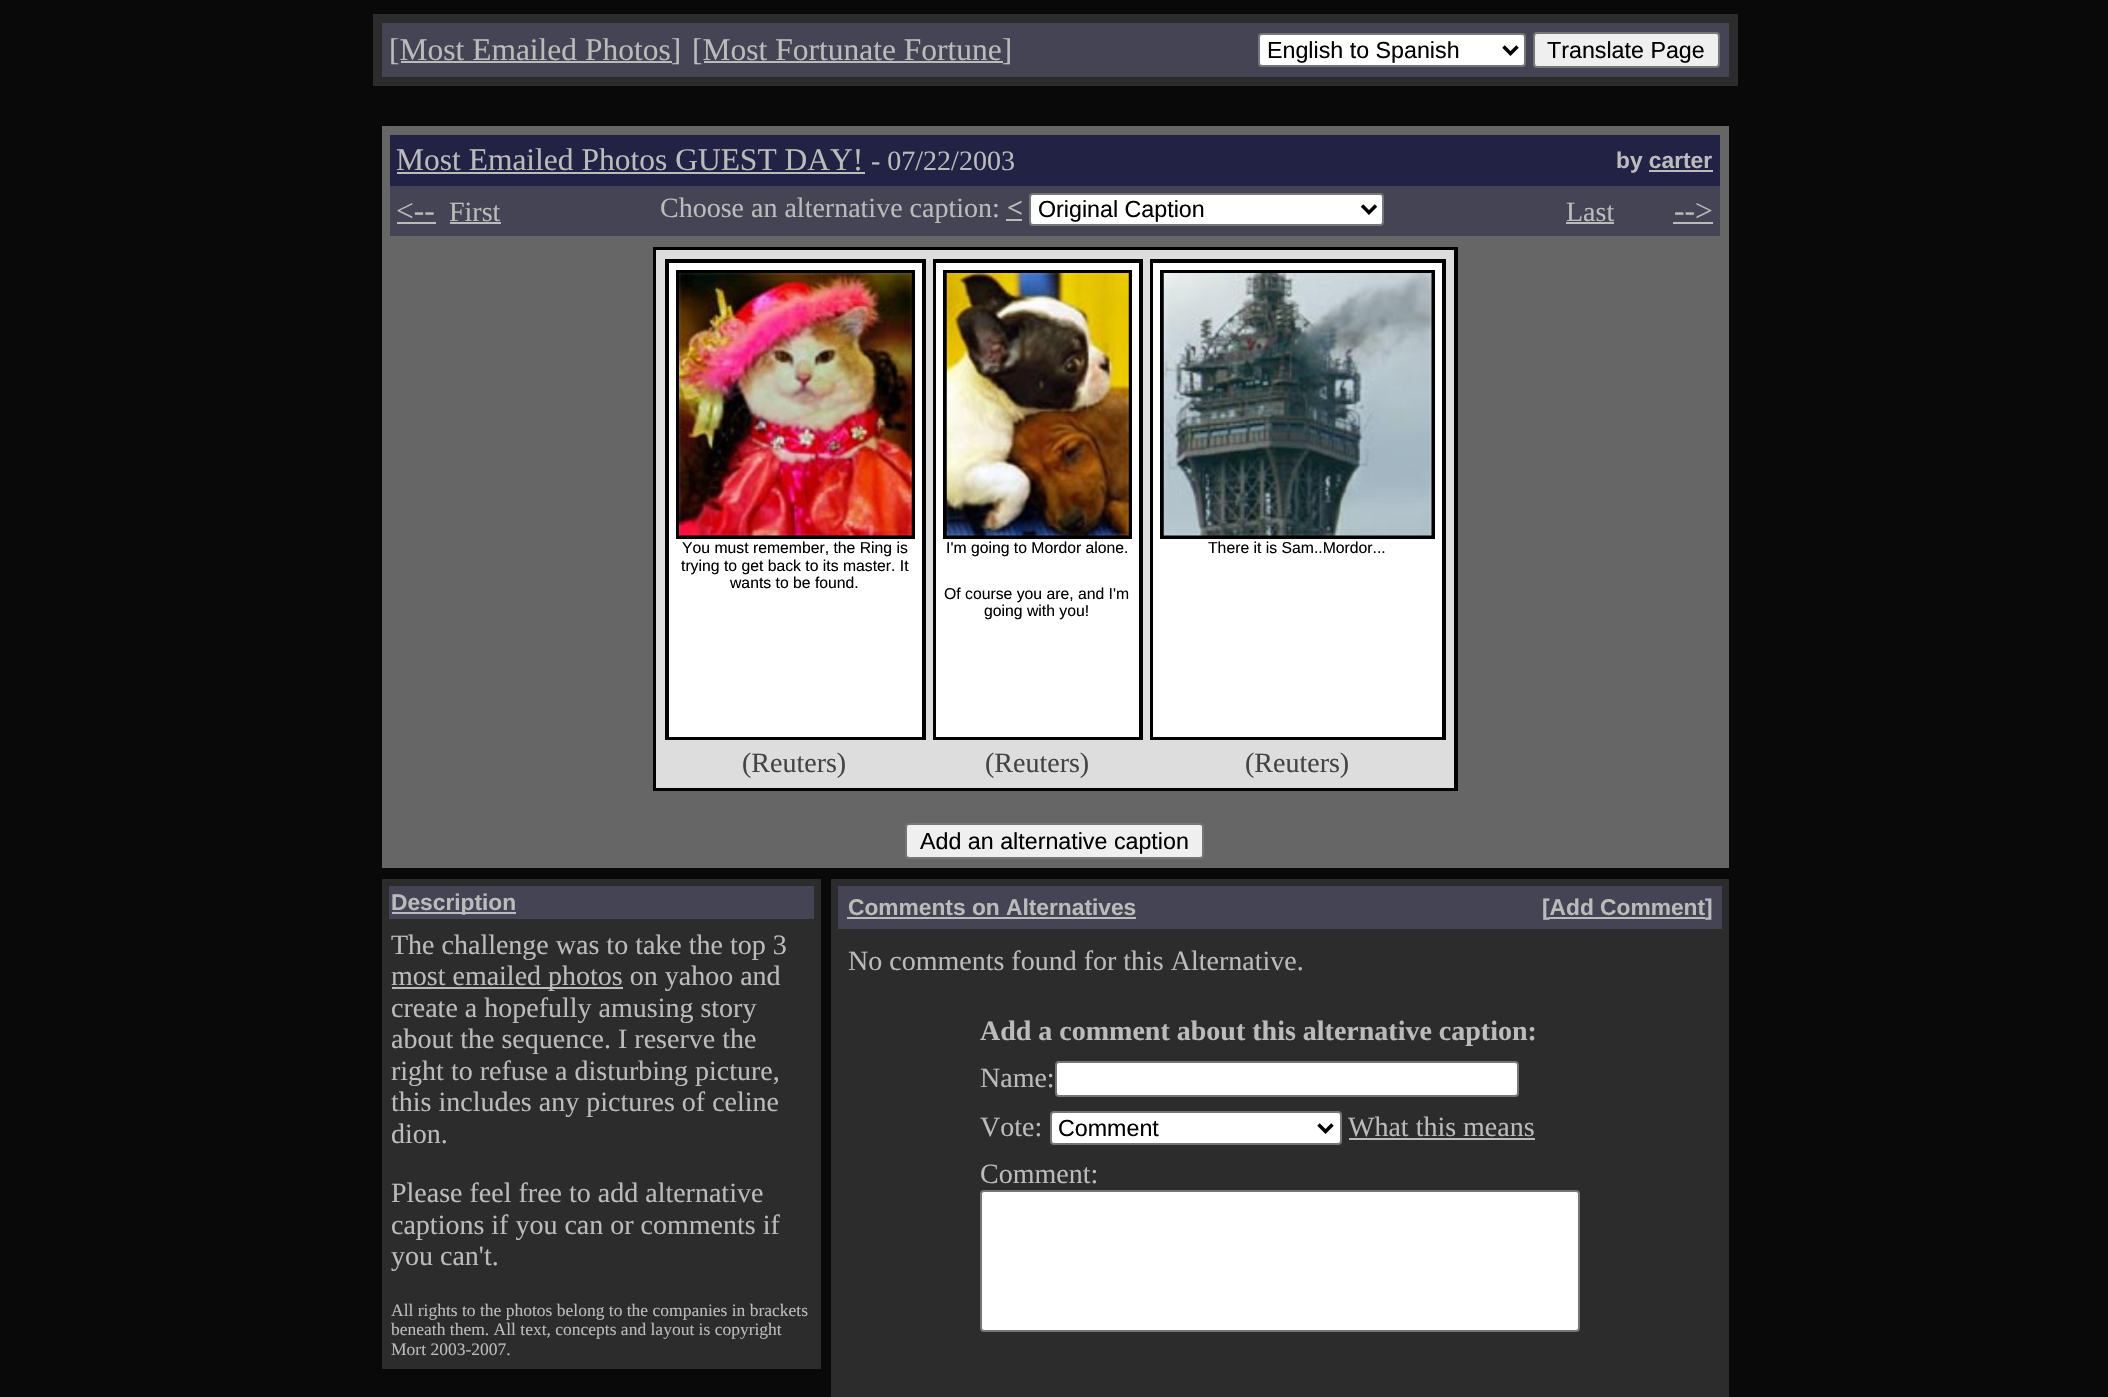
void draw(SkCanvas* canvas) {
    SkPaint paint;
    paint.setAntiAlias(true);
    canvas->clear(0xFF090909);
    paint.setColor(0xFF2C2C2C);
    canvas->drawRect(SkRect::MakeXYWH(373, 14, 1365, 72), paint);
    paint.setColor(0xFF444455);
    canvas->drawRect(SkRect::MakeXYWH(382, 23, 1347, 54), paint);
    SkFont font1(fontMgr->matchFamilyStyle("Liberation Serif", SkFontStyle::Normal()), 31.5f);
    font1.setSubpixel(true);
    paint.setColor(0xFFBBBBBB);
    canvas->drawString("[Most Emailed Photos]", 389, 60, font1, paint);
    canvas->drawRect(SkRect::MakeXYWH(401, 61, 271, 2), paint);
    canvas->drawString("[Most Fortunate Fortune]", 692, 60, font1, paint);
    canvas->drawRect(SkRect::MakeXYWH(704, 61, 299, 2), paint);
    paint.setColor(0xFFFFFFFF);
    canvas->drawRoundRect(SkRect::MakeXYWH(1259, 34, 266, 32), 3, 3, paint);
    paint.setStyle(SkPaint::kStroke_Style);
    paint.setStrokeWidth(2);
    paint.setColor(0xFF767676);
    canvas->drawRoundRect(SkRect::MakeXYWH(1259, 34, 266, 32), 3, 3, paint);
    paint.setStrokeWidth(3.5f);
    paint.setColor(0xFF000000);
    canvas->drawPath(SkPathBuilder().moveTo(1503.5f, 46.5f).lineTo(1510.5f, 53.5f).lineTo(1517.5f, 46.5f).detach(), paint);
    SkFont font2(fontMgr->matchFamilyStyle("Liberation Sans", SkFontStyle::Normal()), 23.25f);
    font2.setSubpixel(true);
    paint.setStyle(SkPaint::kFill_Style);
    canvas->drawString("English to Spanish", 1267, 58, font2, paint);
    paint.setColor(0xFFEFEFEF);
    canvas->drawRoundRect(SkRect::MakeXYWH(1534, 33, 185, 34), 3, 3, paint);
    paint.setStyle(SkPaint::kStroke_Style);
    paint.setStrokeWidth(2);
    paint.setColor(0xFF767676);
    canvas->drawRoundRect(SkRect::MakeXYWH(1534, 33, 185, 34), 3, 3, paint);
    paint.setStyle(SkPaint::kFill_Style);
    paint.setColor(0xFF000000);
    canvas->drawString("Translate Page", 1547, 58, font2, paint);
    paint.setColor(0xFF666666);
    canvas->drawRect(SkRect::MakeXYWH(382, 126, 1347, 742), paint);
    paint.setColor(0xFF222244);
    canvas->drawRect(SkRect::MakeXYWH(390, 135, 1330, 51), paint);
    paint.setColor(0xFFBBBBBB);
    canvas->drawString("Most Emailed Photos GUEST DAY!", 396, 170, font1, paint);
    canvas->drawRect(SkRect::MakeXYWH(397, 172, 468, 2), paint);
    SkFont font3(fontMgr->matchFamilyStyle("Liberation Serif", SkFontStyle::Normal()), 28);
    font3.setSubpixel(true);
    canvas->drawString("- 07/22/2003", 871, 170, font3, paint);
    SkFont font4(fontMgr->matchFamilyStyle("Liberation Sans", SkFontStyle::Bold()), 22.75f);
    font4.setSubpixel(true);
    canvas->drawString("by carter", 1616, 168, font4, paint);
    canvas->drawRect(SkRect::MakeXYWH(1649, 170, 64, 2), paint);
    paint.setColor(0xFF444455);
    canvas->drawRect(SkRect::MakeXYWH(390, 186, 1330, 50), paint);
    paint.setColor(0xFFBBBBBB);
    canvas->drawString("<--", 396, 221, font1, paint);
    canvas->drawRect(SkRect::MakeXYWH(397, 222, 39, 2), paint);
    canvas->drawString("First", 449, 221, font3, paint);
    canvas->drawRect(SkRect::MakeXYWH(450, 222, 51, 2), paint);
    canvas->drawString("Choose an alternative caption:", 660, 217, font3, paint);
    SkFont font5(fontMgr->matchFamilyStyle("Liberation Serif", SkFontStyle::Bold()), 28);
    font5.setSubpixel(true);
    canvas->drawString("<", 1007, 217, font5, paint);
    canvas->drawRect(SkRect::MakeXYWH(1006, 219, 16, 2), paint);
    paint.setColor(0xFFFFFFFF);
    canvas->drawRoundRect(SkRect::MakeXYWH(1030, 194, 353, 31), 3, 3, paint);
    paint.setStyle(SkPaint::kStroke_Style);
    paint.setColor(0xFF767676);
    canvas->drawRoundRect(SkRect::MakeXYWH(1030, 194, 353, 31), 3, 3, paint);
    paint.setStrokeWidth(3.5f);
    paint.setColor(0xFF000000);
    canvas->drawPath(SkPathBuilder().moveTo(1362, 205.5f).lineTo(1369, 212.5f).lineTo(1376, 205.5f).detach(), paint);
    paint.setStyle(SkPaint::kFill_Style);
    canvas->drawString("Original Caption", 1038, 217, font2, paint);
    paint.setColor(0xFFBBBBBB);
    canvas->drawString("Last", 1566, 221, font3, paint);
    canvas->drawRect(SkRect::MakeXYWH(1566, 222, 48, 2), paint);
    canvas->drawString("-->", 1674, 221, font1, paint);
    canvas->drawRect(SkRect::MakeXYWH(1673, 222, 40, 2), paint);
    paint.setColor(0xFF000000);
    canvas->drawRect(SkRect::MakeXYWH(653, 247, 805, 544), paint);
    paint.setColor(0xFFDDDDDD);
    canvas->drawRect(SkRect::MakeXYWH(656, 250, 798, 538), paint);
    paint.setColor(0xFF000000);
    canvas->drawRect(SkRect::MakeXYWH(665, 259, 261, 481), paint);
    paint.setColor(0xFFFFFFFF);
    canvas->drawRect(SkRect::MakeXYWH(669, 263, 253, 474), paint);
    paint.setStyle(SkPaint::kStroke_Style);
    paint.setStrokeWidth(4);
    paint.setColor(0xFF000000);
    canvas->drawRect(SkRect::MakeXYWH(678, 272, 235, 265), paint);
    canvas->drawImageRect(SkImages::DeferredFromEncodedData(SkData::MakeFromFileName("img1.png")), SkRect::MakeXYWH(679, 273, 233, 263), SkSamplingOptions());
    SkFont font6(fontMgr->matchFamilyStyle("Liberation Sans", SkFontStyle::Normal()), 15.75f);
    font6.setSubpixel(true);
    paint.setStyle(SkPaint::kFill_Style);
    canvas->drawString("You must remember, the Ring is", 682, 553, font6, paint);
    canvas->drawString("trying to get back to its master. It", 681, 571, font6, paint);
    canvas->drawString("wants to be found.", 730, 588, font6, paint);
    canvas->drawRect(SkRect::MakeXYWH(933, 259, 210, 481), paint);
    paint.setColor(0xFFFFFFFF);
    canvas->drawRect(SkRect::MakeXYWH(936, 263, 203, 474), paint);
    paint.setStyle(SkPaint::kStroke_Style);
    paint.setColor(0xFF000000);
    canvas->drawRect(SkRect::MakeXYWH(945, 272, 185, 265), paint);
    canvas->drawImageRect(SkImages::DeferredFromEncodedData(SkData::MakeFromFileName("img2.png")), SkRect::MakeXYWH(946, 273, 183, 263), SkSamplingOptions());
    paint.setStyle(SkPaint::kFill_Style);
    canvas->drawString("I'm going to Mordor alone.", 946, 553, font6, paint);
    canvas->drawString("Of course you are, and I'm", 944, 599, font6, paint);
    canvas->drawString("going with you!", 984, 616, font6, paint);
    canvas->drawRect(SkRect::MakeXYWH(1150, 259, 296, 481), paint);
    paint.setColor(0xFFFFFFFF);
    canvas->drawRect(SkRect::MakeXYWH(1153, 263, 289, 474), paint);
    paint.setStyle(SkPaint::kStroke_Style);
    paint.setColor(0xFF000000);
    canvas->drawRect(SkRect::MakeXYWH(1162, 272, 271, 265), paint);
    canvas->drawImageRect(SkImages::DeferredFromEncodedData(SkData::MakeFromFileName("img3.png")), SkRect::MakeXYWH(1163, 273, 269, 263), SkSamplingOptions());
    paint.setStyle(SkPaint::kFill_Style);
    canvas->drawString("There it is Sam..Mordor...", 1208, 553, font6, paint);
    paint.setColor(0xFF444444);
    canvas->drawString("(Reuters)", 742, 772, font3, paint);
    canvas->drawString("(Reuters)", 985, 772, font3, paint);
    canvas->drawString("(Reuters)", 1245, 772, font3, paint);
    paint.setColor(0xFFEFEFEF);
    canvas->drawRoundRect(SkRect::MakeXYWH(906, 824, 297, 34), 3, 3, paint);
    paint.setStyle(SkPaint::kStroke_Style);
    paint.setStrokeWidth(2);
    paint.setColor(0xFF767676);
    canvas->drawRoundRect(SkRect::MakeXYWH(906, 824, 297, 34), 3, 3, paint);
    paint.setStyle(SkPaint::kFill_Style);
    paint.setColor(0xFF000000);
    canvas->drawString("Add an alternative caption", 920, 849, font2, paint);
    paint.setColor(0xFF2C2C2C);
    canvas->drawRect(SkRect::MakeXYWH(382, 879, 439, 490), paint);
    paint.setColor(0xFF444455);
    canvas->drawRect(SkRect::MakeXYWH(389, 886, 425, 33), paint);
    paint.setColor(0xFFBBBBBB);
    canvas->drawRect(SkRect::MakeXYWH(392, 912, 124, 2), paint);
    canvas->drawString("Description", 391, 910, font4, paint);
    canvas->drawString("The challenge was to take the top 3", 391, 954, font3, paint);
    canvas->drawRect(SkRect::MakeXYWH(392, 987, 231, 2), paint);
    canvas->drawString("most emailed photos on yahoo and", 391, 985, font3, paint);
    canvas->drawString("create a hopefully amusing story", 391, 1017, font3, paint);
    canvas->drawString("about the sequence. I reserve the", 391, 1048, font3, paint);
    canvas->drawString("right to refuse a disturbing picture,", 391, 1080, font3, paint);
    canvas->drawString("this includes any pictures of celine", 391, 1111, font3, paint);
    canvas->drawString("dion.", 391, 1143, font3, paint);
    canvas->drawString("Please feel free to add alternative", 391, 1202, font3, paint);
    canvas->drawString("captions if you can or comments if", 391, 1234, font3, paint);
    canvas->drawString("you can't.", 391, 1265, font3, paint);
    SkFont font7(fontMgr->matchFamilyStyle("Liberation Serif", SkFontStyle::Normal()), 17.5f);
    font7.setSubpixel(true);
    canvas->drawString("All rights to the photos belong to the companies in brackets", 391, 1316, font7, paint);
    canvas->drawString("beneath them. All text, concepts and layout is copyright", 391, 1335, font7, paint);
    canvas->drawString("Mort 2003-2007.", 391, 1355, font7, paint);
    paint.setColor(0xFF2C2C2C);
    canvas->drawRect(SkRect::MakeXYWH(831, 879, 898, 518), paint);
    paint.setColor(0xFF444455);
    canvas->drawRect(SkRect::MakeXYWH(838, 886, 884, 43), paint);
    paint.setColor(0xFFBBBBBB);
    canvas->drawString("Comments on Alternatives", 848, 915, font4, paint);
    canvas->drawRect(SkRect::MakeXYWH(847, 917, 289, 2), paint);
    canvas->drawString("[Add Comment]", 1542, 915, font4, paint);
    canvas->drawRect(SkRect::MakeXYWH(1549, 917, 156, 2), paint);
    canvas->drawString("No comments found for this Alternative.", 848, 970, font3, paint);
    canvas->drawString("Add a comment about this alternative caption:", 980, 1040, font5, paint);
    canvas->drawString("Name:", 980, 1087, font3, paint);
    paint.setColor(0xFFFFFFFF);
    canvas->drawRoundRect(SkRect::MakeXYWH(1056, 1062, 462, 34), 3, 3, paint);
    paint.setStyle(SkPaint::kStroke_Style);
    paint.setColor(0xFF767676);
    canvas->drawRoundRect(SkRect::MakeXYWH(1056, 1062, 462, 34), 3, 3, paint);
    paint.setStyle(SkPaint::kFill_Style);
    paint.setColor(0xFFBBBBBB);
    canvas->drawString("Vote:", 980, 1136, font3, paint);
    paint.setColor(0xFFFFFFFF);
    canvas->drawRoundRect(SkRect::MakeXYWH(1051, 1112, 290, 32), 3, 3, paint);
    paint.setStyle(SkPaint::kStroke_Style);
    paint.setColor(0xFF767676);
    canvas->drawRoundRect(SkRect::MakeXYWH(1051, 1112, 290, 32), 3, 3, paint);
    paint.setStrokeWidth(3.5f);
    paint.setColor(0xFF000000);
    canvas->drawPath(SkPathBuilder().moveTo(1318.5f, 1124.5f).lineTo(1325.5f, 1131.5f).lineTo(1332.5f, 1124.5f).detach(), paint);
    paint.setStyle(SkPaint::kFill_Style);
    canvas->drawString("Comment", 1058, 1136, font2, paint);
    paint.setColor(0xFFBBBBBB);
    canvas->drawString("What this means", 1348, 1136, font3, paint);
    canvas->drawRect(SkRect::MakeXYWH(1349, 1138, 186, 2), paint);
    canvas->drawString("Comment:", 980, 1183, font3, paint);
    paint.setColor(0xFFFFFFFF);
    canvas->drawRoundRect(SkRect::MakeXYWH(981, 1191, 598, 140), 3, 3, paint);
    paint.setStyle(SkPaint::kStroke_Style);
    paint.setStrokeWidth(2);
    paint.setColor(0xFF767676);
    canvas->drawRoundRect(SkRect::MakeXYWH(981, 1191, 598, 140), 3, 3, paint);
}
